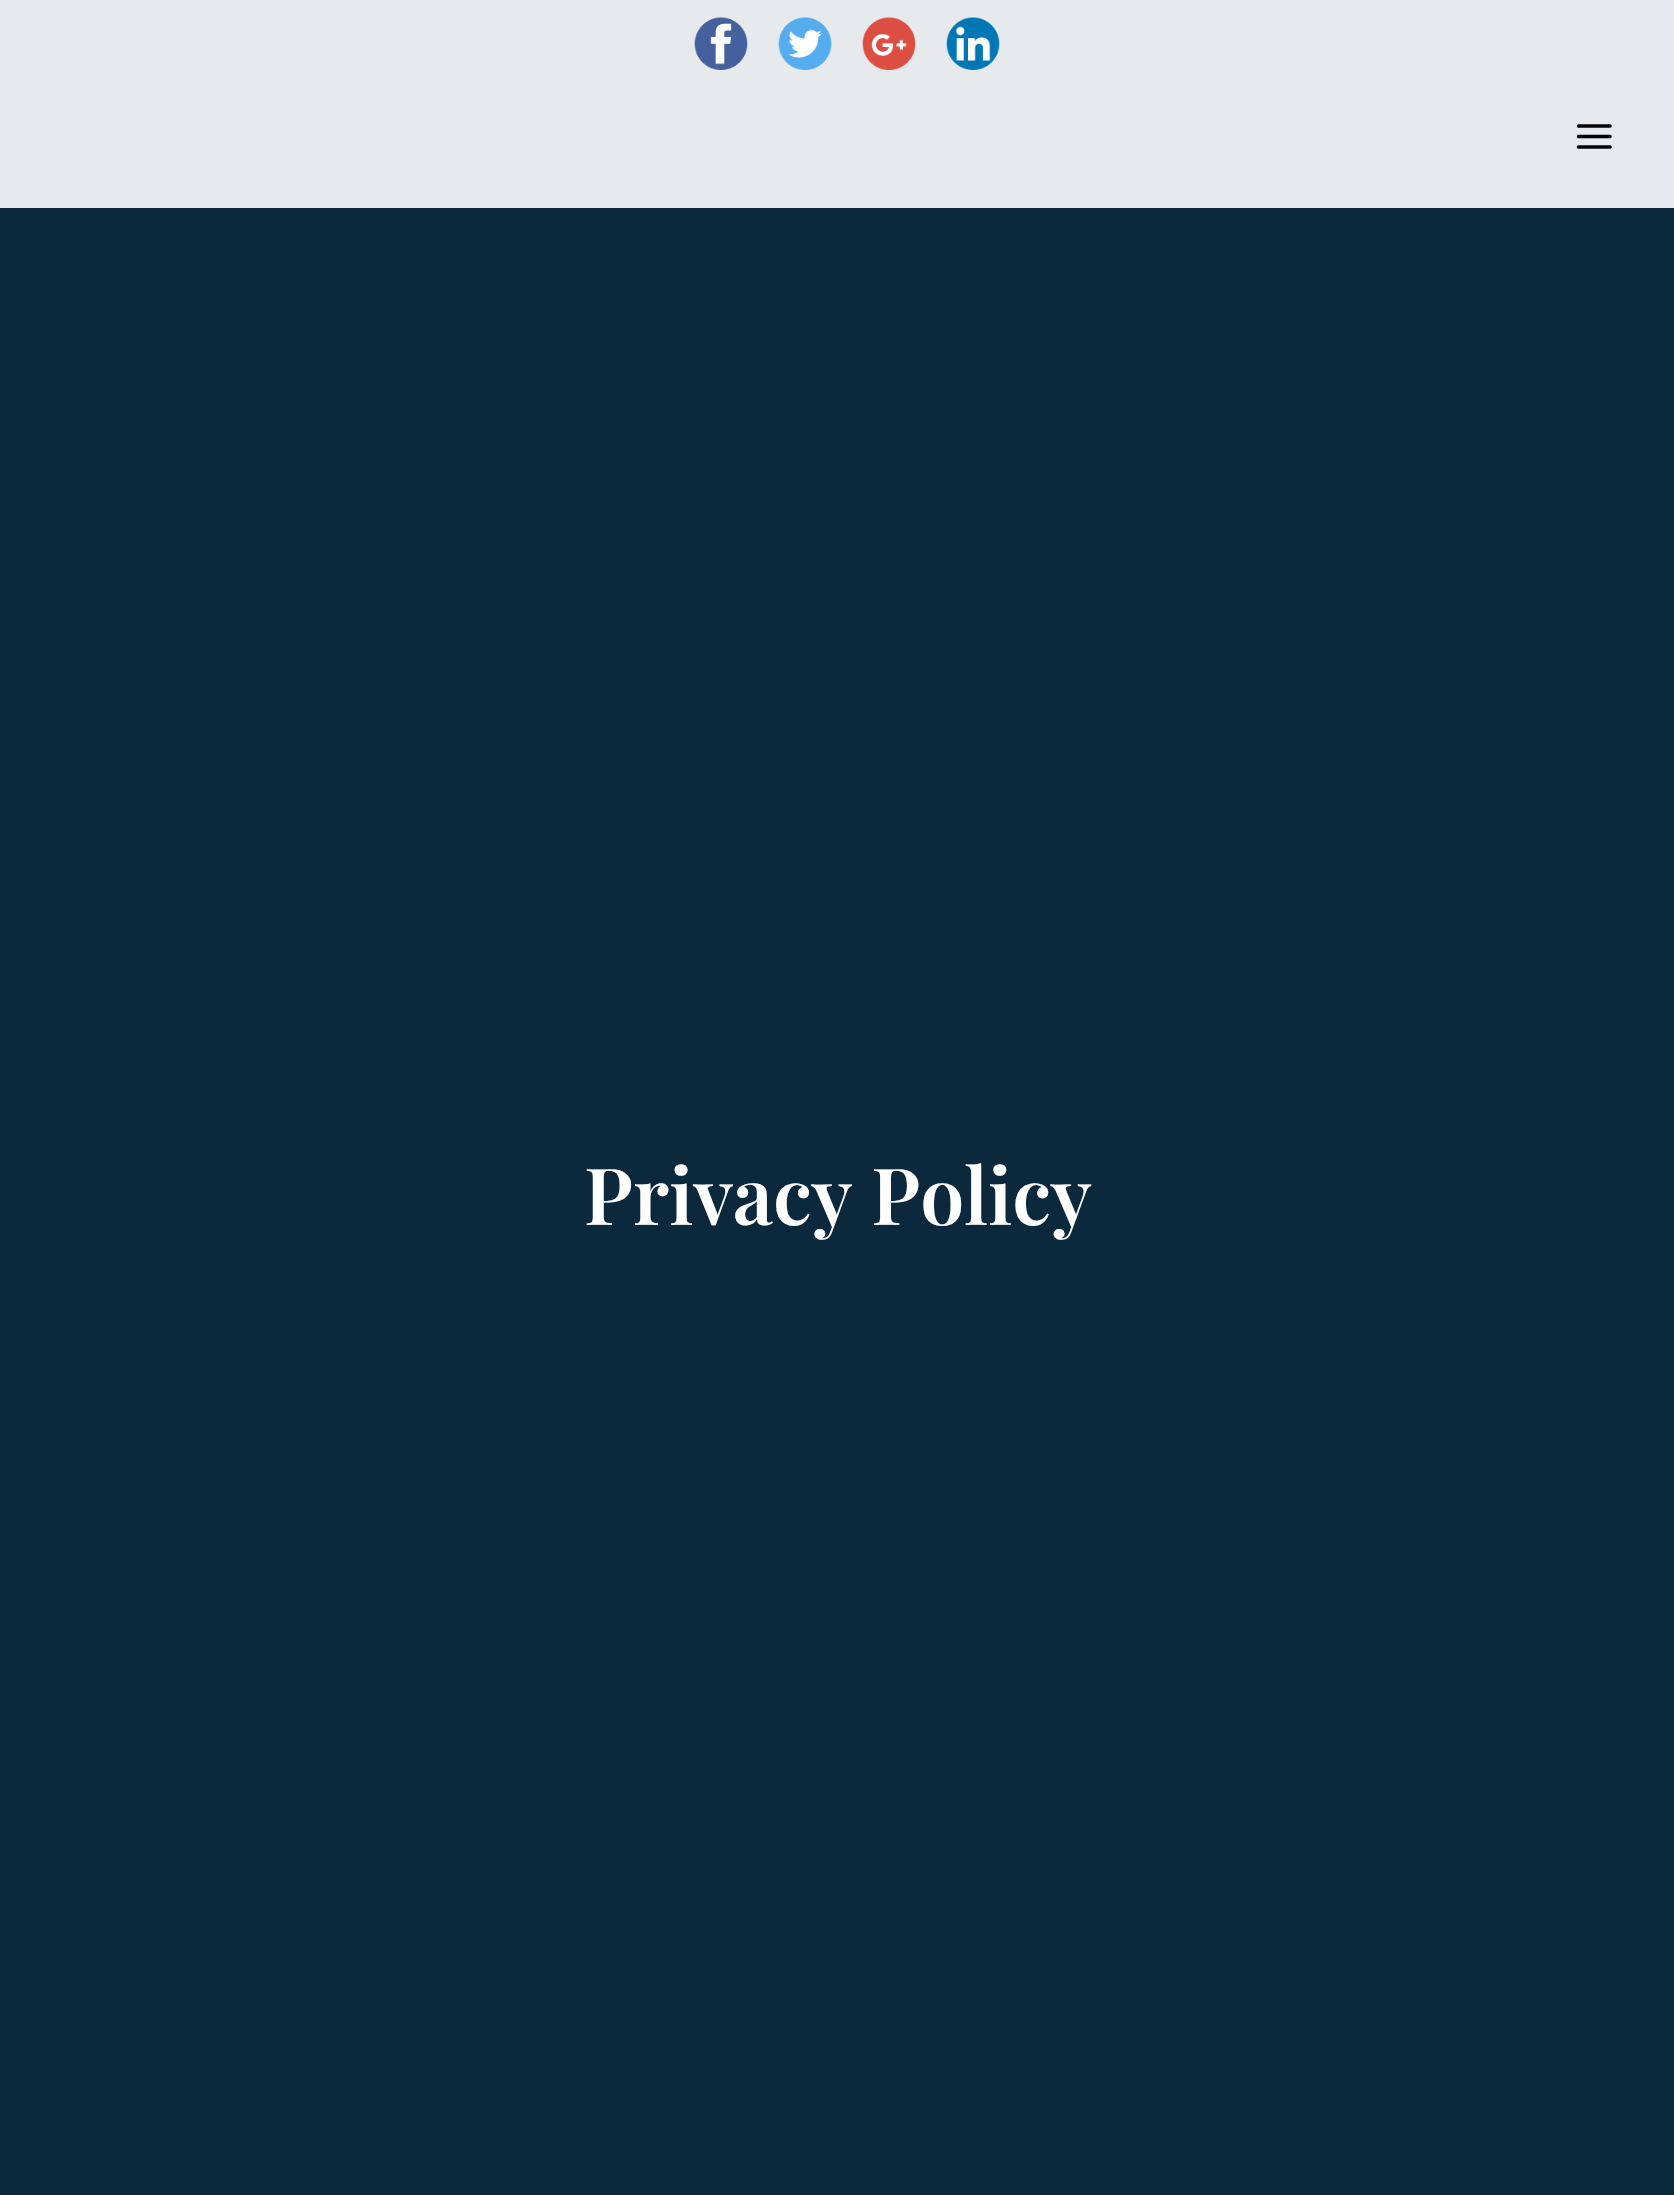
void draw(SkCanvas* canvas) {
    SkPaint paint;
    paint.setAntiAlias(true);
    canvas->clear(0xFF0B283C);
    paint.setColor(0xFFE7EAEC);
    canvas->drawRect(SkRect::MakeXYWH(0, 0, 1674, 208), paint);
    canvas->drawImageRect(SkImages::DeferredFromEncodedData(SkData::MakeFromFileName("img1.png")), SkRect::MakeXYWH(694, 17, 54, 53), SkSamplingOptions());
    canvas->drawImageRect(SkImages::DeferredFromEncodedData(SkData::MakeFromFileName("img2.png")), SkRect::MakeXYWH(778, 17, 54, 53), SkSamplingOptions());
    canvas->drawImageRect(SkImages::DeferredFromEncodedData(SkData::MakeFromFileName("img3.png")), SkRect::MakeXYWH(862, 17, 54, 53), SkSamplingOptions());
    canvas->drawImageRect(SkImages::DeferredFromEncodedData(SkData::MakeFromFileName("img4.png")), SkRect::MakeXYWH(946, 17, 54, 53), SkSamplingOptions());
    canvas->drawImageRect(SkImages::DeferredFromEncodedData(SkData::MakeFromFileName("img5.png")), SkRect::MakeXYWH(1576, 124, 36, 25), SkSamplingOptions());
    SkFont font1(fontMgr->matchFamilyStyle("Playfair Display", SkFontStyle(600, SkFontStyle::kNormal_Width, SkFontStyle::kUpright_Slant)), 78.75f);
    font1.setSubpixel(true);
    paint.setColor(0xFFFFFFFF);
    canvas->drawString("Privacy Policy", 584, 1225, font1, paint);
}
